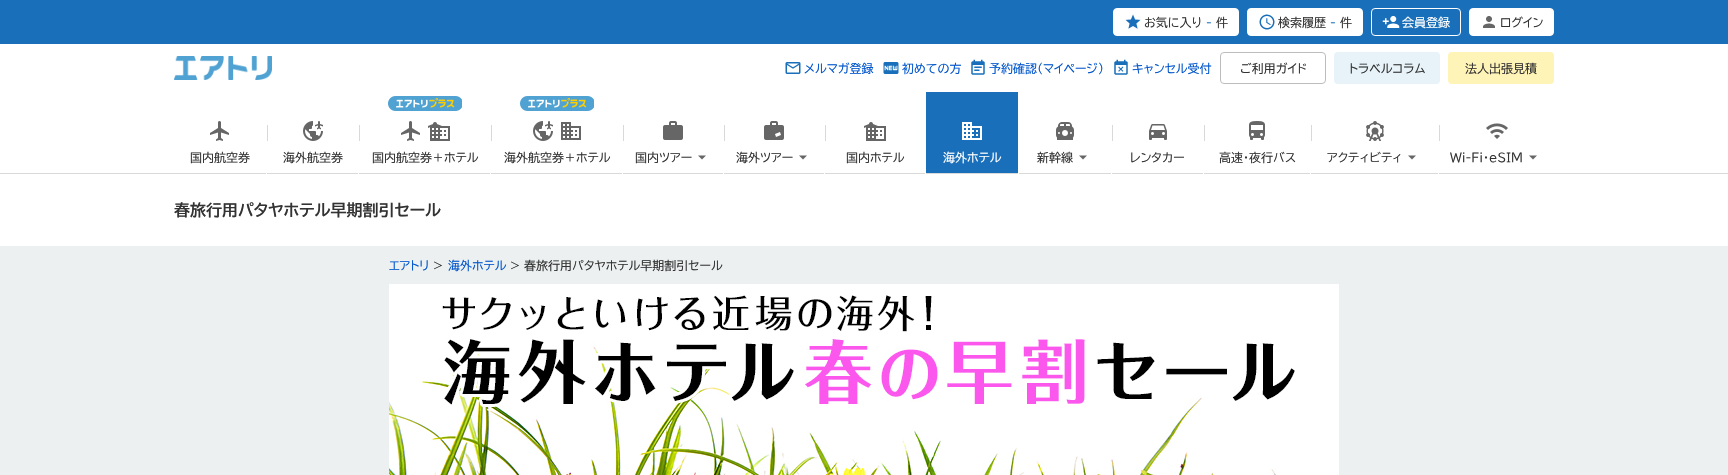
void draw(SkCanvas* canvas) {
    SkPaint paint;
    paint.setAntiAlias(true);
    canvas->clear(0xFFFFFFFF);
    paint.setColor(0xFFD9D9D9);
    canvas->drawRect(SkRect::MakeXYWH(0, 173, 1728, 1), paint);
    paint.setColor(0xFF196FB9);
    canvas->drawRect(SkRect::MakeXYWH(0, 0, 1728, 44), paint);
    paint.setColor(0xFFFFFFFF);
    canvas->drawRoundRect(SkRect::MakeXYWH(1113.5f, 8.5f, 125, 27), 3.5f, 3.5f, paint);
    paint.setStyle(SkPaint::kStroke_Style);
    paint.setStrokeWidth(1);
    canvas->drawRoundRect(SkRect::MakeXYWH(1113.5f, 8.5f, 125, 27), 3.5f, 3.5f, paint);
    canvas->drawImageRect(SkImages::DeferredFromEncodedData(SkData::MakeFromFileName("img1.png")), SkRect::MakeXYWH(1125, 14, 16, 15), SkSamplingOptions());
    SkFont font1(fontMgr->matchFamilyStyle("BIZ UDPGothic", SkFontStyle::Normal()), 12);
    font1.setSubpixel(true);
    paint.setStyle(SkPaint::kFill_Style);
    paint.setColor(0xFF333333);
    canvas->drawString("お気に入り", 1144, 27, font1, paint);
    paint.setColor(0xFF196FB9);
    canvas->drawString("-", 1206, 27, font1, paint);
    paint.setColor(0xFF333333);
    canvas->drawString("件", 1216, 27, font1, paint);
    paint.setColor(0xFFFFFFFF);
    canvas->drawRoundRect(SkRect::MakeXYWH(1247.5f, 8.5f, 115, 27), 3.5f, 3.5f, paint);
    paint.setStyle(SkPaint::kStroke_Style);
    canvas->drawRoundRect(SkRect::MakeXYWH(1247.5f, 8.5f, 115, 27), 3.5f, 3.5f, paint);
    canvas->drawImageRect(SkImages::DeferredFromEncodedData(SkData::MakeFromFileName("img2.png")), SkRect::MakeXYWH(1259, 14, 16, 16), SkSamplingOptions());
    paint.setStyle(SkPaint::kFill_Style);
    paint.setColor(0xFF333333);
    canvas->drawString("検索履歴", 1278, 27, font1, paint);
    paint.setColor(0xFF196FB9);
    canvas->drawString("-", 1330, 27, font1, paint);
    paint.setColor(0xFF333333);
    canvas->drawString("件", 1340, 27, font1, paint);
    paint.setStyle(SkPaint::kStroke_Style);
    paint.setColor(0xFFFFFFFF);
    canvas->drawRoundRect(SkRect::MakeXYWH(1371.5f, 8.5f, 89, 27), 3.5f, 3.5f, paint);
    canvas->drawImageRect(SkImages::DeferredFromEncodedData(SkData::MakeFromFileName("img3.png")), SkRect::MakeXYWH(1382, 16, 18, 12), SkSamplingOptions());
    paint.setStyle(SkPaint::kFill_Style);
    canvas->drawString("会員登録", 1402, 27, font1, paint);
    canvas->drawRoundRect(SkRect::MakeXYWH(1469.5f, 8.5f, 84, 27), 3.5f, 3.5f, paint);
    paint.setStyle(SkPaint::kStroke_Style);
    canvas->drawRoundRect(SkRect::MakeXYWH(1469.5f, 8.5f, 84, 27), 3.5f, 3.5f, paint);
    canvas->drawImageRect(SkImages::DeferredFromEncodedData(SkData::MakeFromFileName("img4.png")), SkRect::MakeXYWH(1483, 16, 12, 12), SkSamplingOptions());
    paint.setStyle(SkPaint::kFill_Style);
    paint.setColor(0xFF333333);
    canvas->drawString("ログイン", 1500, 27, font1, paint);
    canvas->drawImageRect(SkImages::DeferredFromEncodedData(SkData::MakeFromFileName("img5.png")), SkRect::MakeXYWH(174, 56, 98, 24), SkSamplingOptions());
    canvas->drawImageRect(SkImages::DeferredFromEncodedData(SkData::MakeFromFileName("img6.png")), SkRect::MakeXYWH(785, 62, 16, 12), SkSamplingOptions());
    paint.setColor(0xFF0055CC);
    canvas->drawString("メルマガ登録", 804, 73, font1, paint);
    canvas->drawImageRect(SkImages::DeferredFromEncodedData(SkData::MakeFromFileName("img7.png")), SkRect::MakeXYWH(883, 62, 16, 12), SkSamplingOptions());
    canvas->drawString("初めての方", 902, 73, font1, paint);
    canvas->drawImageRect(SkImages::DeferredFromEncodedData(SkData::MakeFromFileName("img8.png")), SkRect::MakeXYWH(971, 59, 14, 16), SkSamplingOptions());
    canvas->drawString("予約確認（マイページ）", 989, 73, font1, paint);
    canvas->drawImageRect(SkImages::DeferredFromEncodedData(SkData::MakeFromFileName("img9.png")), SkRect::MakeXYWH(1114, 59, 14, 16), SkSamplingOptions());
    canvas->drawString("キャンセル受付", 1132, 73, font1, paint);
    paint.setStyle(SkPaint::kStroke_Style);
    paint.setColor(0xFFBCBCBC);
    canvas->drawRoundRect(SkRect::MakeXYWH(1220.5f, 52.5f, 105, 31), 3.5f, 3.5f, paint);
    paint.setStyle(SkPaint::kFill_Style);
    paint.setColor(0xFF333333);
    canvas->drawString("ご利用ガイド", 1240, 73, font1, paint);
    paint.setColor(0xFFE7F3F9);
    canvas->drawRoundRect(SkRect::MakeXYWH(1334, 52, 106, 32), 4, 4, paint);
    paint.setColor(0xFF333333);
    canvas->drawString("トラベルコラム", 1349, 73, font1, paint);
    paint.setColor(0xFFFFF4B8);
    canvas->drawRoundRect(SkRect::MakeXYWH(1448, 52, 106, 32), 4, 4, paint);
    paint.setColor(0xFF333333);
    canvas->drawString("法人出張見積", 1465, 73, font1, paint);
    paint.setColor(0xFFFFFFFF);
    canvas->drawRect(SkRect::MakeXYWH(266, 173, 1, 1), paint);
    canvas->drawImageRect(SkImages::DeferredFromEncodedData(SkData::MakeFromFileName("img10.png")), SkRect::MakeXYWH(210, 121, 19, 20), SkSamplingOptions());
    paint.setColor(0xFF333333);
    canvas->drawString("国内航空券", 190, 162, font1, paint);
    paint.setColor(0xFFFFFFFF);
    canvas->drawRect(SkRect::MakeXYWH(358, 173, 1, 1), paint);
    paint.setColor(0xFFD9D9D9);
    canvas->drawRect(SkRect::MakeXYWH(267, 125, 1, 16), paint);
    canvas->drawImageRect(SkImages::DeferredFromEncodedData(SkData::MakeFromFileName("img11.png")), SkRect::MakeXYWH(303, 121, 20, 20), SkSamplingOptions());
    paint.setColor(0xFF333333);
    canvas->drawString("海外航空券", 283, 162, font1, paint);
    paint.setColor(0xFFFFFFFF);
    canvas->drawRect(SkRect::MakeXYWH(490, 173, 1, 1), paint);
    canvas->drawImageRect(SkImages::DeferredFromEncodedData(SkData::MakeFromFileName("img12.png")), SkRect::MakeXYWH(388, 96, 74, 15), SkSamplingOptions());
    paint.setColor(0xFFD9D9D9);
    canvas->drawRect(SkRect::MakeXYWH(359, 125, 1, 16), paint);
    canvas->drawImageRect(SkImages::DeferredFromEncodedData(SkData::MakeFromFileName("img13.png")), SkRect::MakeXYWH(401, 121, 49, 20), SkSamplingOptions());
    paint.setColor(0xFF333333);
    canvas->drawString("国内航空券＋ホテル", 372, 162, font1, paint);
    paint.setColor(0xFFFFFFFF);
    canvas->drawRect(SkRect::MakeXYWH(622, 173, 1, 1), paint);
    canvas->drawImageRect(SkImages::DeferredFromEncodedData(SkData::MakeFromFileName("img12.png")), SkRect::MakeXYWH(520, 96, 74, 15), SkSamplingOptions());
    paint.setColor(0xFFD9D9D9);
    canvas->drawRect(SkRect::MakeXYWH(491, 125, 1, 16), paint);
    canvas->drawImageRect(SkImages::DeferredFromEncodedData(SkData::MakeFromFileName("img14.png")), SkRect::MakeXYWH(533, 121, 48, 20), SkSamplingOptions());
    paint.setColor(0xFF333333);
    canvas->drawString("海外航空券＋ホテル", 504, 162, font1, paint);
    paint.setColor(0xFFFFFFFF);
    canvas->drawRect(SkRect::MakeXYWH(723, 173, 1, 1), paint);
    paint.setColor(0xFFD9D9D9);
    canvas->drawRect(SkRect::MakeXYWH(623, 125, 1, 16), paint);
    canvas->drawImageRect(SkImages::DeferredFromEncodedData(SkData::MakeFromFileName("img15.png")), SkRect::MakeXYWH(663, 121, 20, 19), SkSamplingOptions());
    paint.setColor(0xFF333333);
    canvas->drawString("国内ツアー", 635, 162, font1, paint);
    paint.setColor(0xFF666666);
    canvas->drawPath(SkPathBuilder().moveTo(698, 155.5f).lineTo(702, 159.5f).lineTo(706, 155.5f).close().detach(), paint);
    paint.setColor(0xFFFFFFFF);
    canvas->drawRect(SkRect::MakeXYWH(824, 173, 1, 1), paint);
    paint.setColor(0xFFD9D9D9);
    canvas->drawRect(SkRect::MakeXYWH(724, 125, 1, 16), paint);
    canvas->drawImageRect(SkImages::DeferredFromEncodedData(SkData::MakeFromFileName("img16.png")), SkRect::MakeXYWH(764, 121, 20, 19), SkSamplingOptions());
    paint.setColor(0xFF333333);
    canvas->drawString("海外ツアー", 736, 162, font1, paint);
    paint.setColor(0xFF666666);
    canvas->drawPath(SkPathBuilder().moveTo(799, 155.5f).lineTo(803, 159.5f).lineTo(807, 155.5f).close().detach(), paint);
    paint.setColor(0xFFFFFFFF);
    canvas->drawRect(SkRect::MakeXYWH(925, 173, 1, 1), paint);
    paint.setColor(0xFFD9D9D9);
    canvas->drawRect(SkRect::MakeXYWH(825, 125, 1, 16), paint);
    canvas->drawImageRect(SkImages::DeferredFromEncodedData(SkData::MakeFromFileName("img17.png")), SkRect::MakeXYWH(864, 122, 22, 19), SkSamplingOptions());
    paint.setColor(0xFF333333);
    canvas->drawString("国内ホテル", 846, 162, font1, paint);
    paint.setColor(0xFFFFFFFF);
    canvas->drawRect(SkRect::MakeXYWH(1018, 173, 1, 1), paint);
    paint.setColor(0xFF196FB9);
    canvas->drawRect(SkRect::MakeXYWH(926, 92, 92, 81), paint);
    canvas->drawImageRect(SkImages::DeferredFromEncodedData(SkData::MakeFromFileName("img18.png")), SkRect::MakeXYWH(962, 122, 20, 18), SkSamplingOptions());
    paint.setColor(0xFFFFFFFF);
    canvas->drawString("海外ホテル", 943, 162, font1, paint);
    canvas->drawRect(SkRect::MakeXYWH(1111, 173, 1, 1), paint);
    canvas->drawImageRect(SkImages::DeferredFromEncodedData(SkData::MakeFromFileName("img19.png")), SkRect::MakeXYWH(1056, 122, 18, 18), SkSamplingOptions());
    paint.setColor(0xFF333333);
    canvas->drawString("新幹線", 1037, 162, font1, paint);
    paint.setColor(0xFF666666);
    canvas->drawPath(SkPathBuilder().moveTo(1079, 155.5f).lineTo(1083, 159.5f).lineTo(1087, 155.5f).close().detach(), paint);
    paint.setColor(0xFFFFFFFF);
    canvas->drawRect(SkRect::MakeXYWH(1203, 173, 1, 1), paint);
    paint.setColor(0xFFD9D9D9);
    canvas->drawRect(SkRect::MakeXYWH(1112, 125, 1, 16), paint);
    canvas->drawImageRect(SkImages::DeferredFromEncodedData(SkData::MakeFromFileName("img20.png")), SkRect::MakeXYWH(1149, 124, 18, 16), SkSamplingOptions());
    paint.setColor(0xFF333333);
    canvas->drawString("レンタカー", 1130, 162, font1, paint);
    paint.setColor(0xFFFFFFFF);
    canvas->drawRect(SkRect::MakeXYWH(1310, 173, 1, 1), paint);
    paint.setColor(0xFFD9D9D9);
    canvas->drawRect(SkRect::MakeXYWH(1204, 125, 1, 16), paint);
    canvas->drawImageRect(SkImages::DeferredFromEncodedData(SkData::MakeFromFileName("img21.png")), SkRect::MakeXYWH(1249, 121, 16, 19), SkSamplingOptions());
    paint.setColor(0xFF333333);
    canvas->drawString("高速・夜行バス", 1219, 162, font1, paint);
    paint.setColor(0xFFFFFFFF);
    canvas->drawRect(SkRect::MakeXYWH(1438, 173, 1, 1), paint);
    paint.setColor(0xFFD9D9D9);
    canvas->drawRect(SkRect::MakeXYWH(1311, 125, 1, 16), paint);
    canvas->drawImageRect(SkImages::DeferredFromEncodedData(SkData::MakeFromFileName("img22.png")), SkRect::MakeXYWH(1366, 121, 18, 20), SkSamplingOptions());
    paint.setColor(0xFF333333);
    canvas->drawString("アクティビティ", 1327, 162, font1, paint);
    paint.setColor(0xFF666666);
    canvas->drawPath(SkPathBuilder().moveTo(1408, 155.5f).lineTo(1412, 159.5f).lineTo(1416, 155.5f).close().detach(), paint);
    paint.setColor(0xFFD9D9D9);
    canvas->drawRect(SkRect::MakeXYWH(1439, 125, 1, 16), paint);
    canvas->drawImageRect(SkImages::DeferredFromEncodedData(SkData::MakeFromFileName("img23.png")), SkRect::MakeXYWH(1486, 123, 22, 16), SkSamplingOptions());
    paint.setColor(0xFF333333);
    canvas->drawString("Wi-Fi・eSIM", 1450, 162, font1, paint);
    paint.setColor(0xFF666666);
    canvas->drawPath(SkPathBuilder().moveTo(1529, 155.5f).lineTo(1533, 159.5f).lineTo(1537, 155.5f).close().detach(), paint);
    SkFont font2(fontMgr->matchFamilyStyle("BIZ UDPGothic", SkFontStyle::Bold()), 16);
    font2.setSubpixel(true);
    paint.setColor(0xFF333333);
    canvas->drawString("春旅行用パタヤホテル早期割引セール", 174, 216, font2, paint);
    paint.setColor(0xFFECF0F1);
    canvas->drawRect(SkRect::MakeXYWH(0, 246, 1728, 229), paint);
    paint.setColor(0xFF0055CC);
    canvas->drawString("エアトリ", 389, 270, font1, paint);
    paint.setColor(0xFF333333);
    canvas->drawString(">", 433, 270, font1, paint);
    paint.setColor(0xFF0055CC);
    canvas->drawString("海外ホテル", 448, 270, font1, paint);
    paint.setColor(0xFF333333);
    canvas->drawString("> 春旅行用パタヤホテル早期割引セール", 510, 270, font1, paint);
    canvas->drawImageRect(SkImages::DeferredFromEncodedData(SkData::MakeFromFileName("img24.png")), SkRect::MakeXYWH(389, 284, 950, 191), SkSamplingOptions());
}
